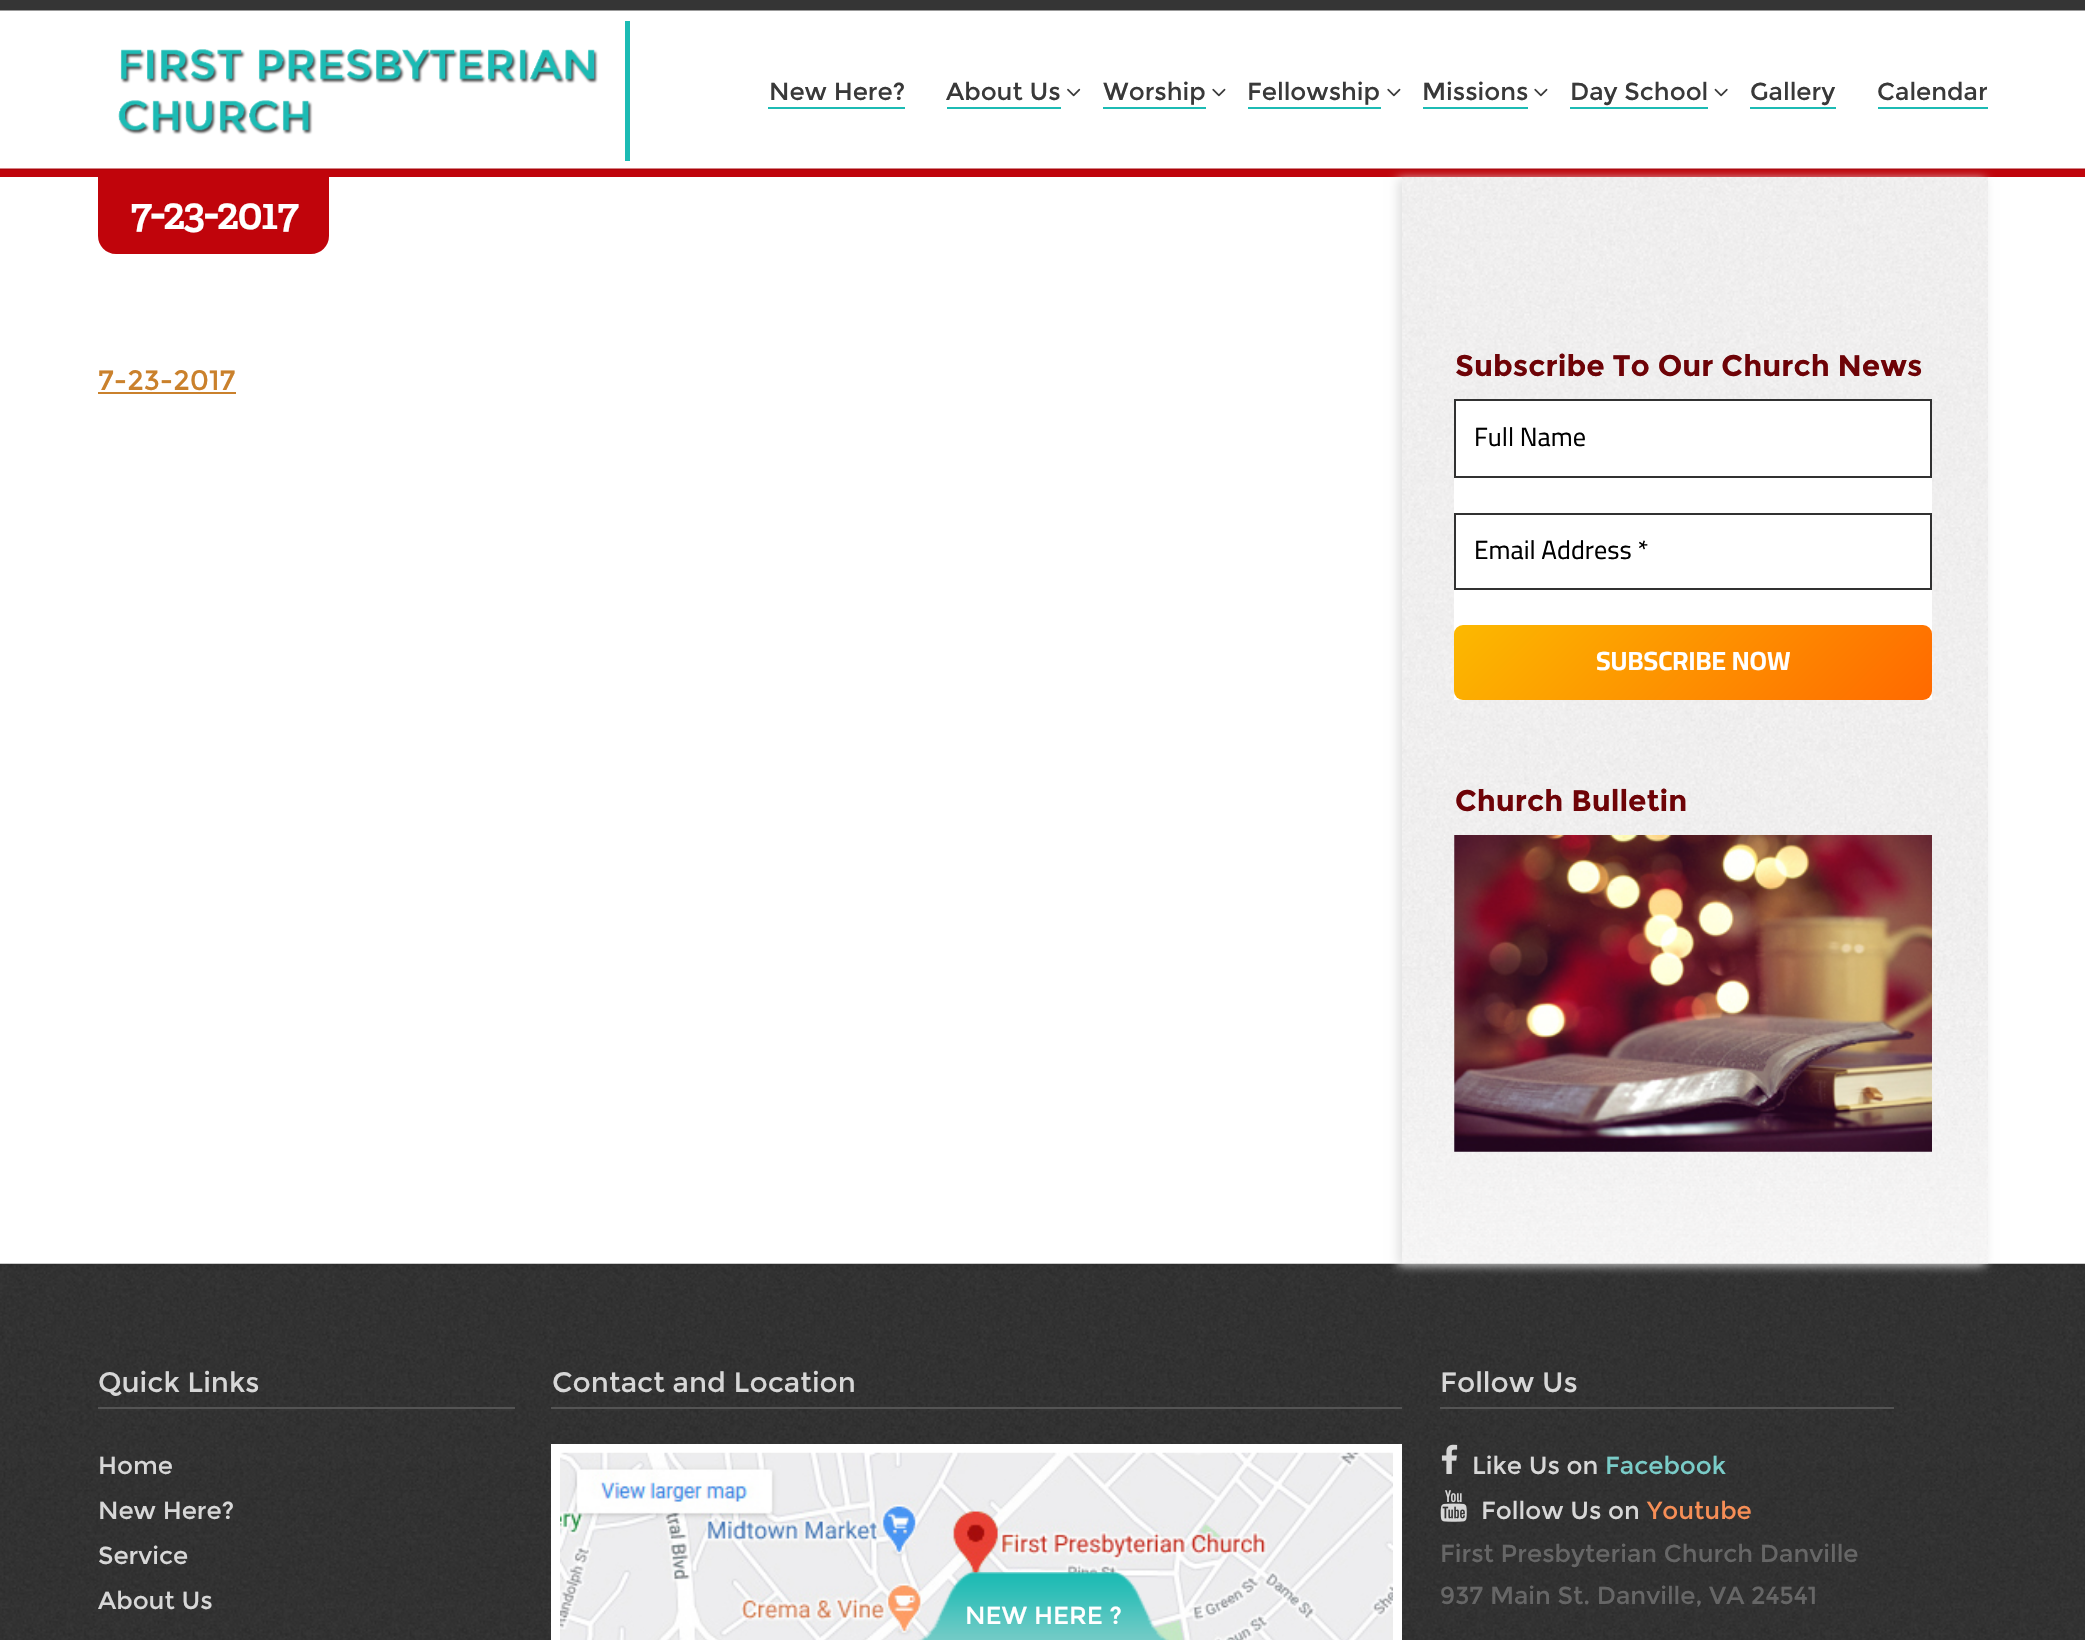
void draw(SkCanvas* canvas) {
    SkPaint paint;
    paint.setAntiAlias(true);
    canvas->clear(0xFFFFFFFF);
    paint.setColor(0xFF353535);
    canvas->drawRect(SkRect::MakeXYWH(0, 0, 2085, 11), paint);
    paint.setColor(0xFFC0040B);
    canvas->drawRect(SkRect::MakeXYWH(0, 168, 2085, 9), paint);
    canvas->drawImageRect(SkImages::DeferredFromEncodedData(SkData::MakeFromFileName("img7.png")), SkRect::MakeXYWH(0, 1263, 2085, 377), SkSamplingOptions());
    canvas->save();
    canvas->clipPath(SkPathBuilder(SkPathFillType::kEvenOdd).moveTo(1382, 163).lineTo(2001, 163).lineTo(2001, 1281).lineTo(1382, 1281).close().moveTo(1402, 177).lineTo(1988, 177).lineTo(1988, 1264).lineTo(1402, 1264).close().detach(), true);
    paint.setColor(0xFFE0E0E0);
    paint.setMaskFilter(SkMaskFilter::MakeBlur(kNormal_SkBlurStyle, 5));
    canvas->drawRect(SkRect::MakeXYWH(1398, 179, 587, 1086), paint);
    paint.setMaskFilter(nullptr);
    canvas->restore();
    paint.setColor(0x1A000000);
    canvas->drawRect(SkRect::MakeXYWH(0, 168, 2085, 2), paint);
    paint.setColor(0x80FFFFFF);
    canvas->drawRect(SkRect::MakeXYWH(0, 10, 2085, 159), paint);
    paint.setColor(0xFF1CBBB4);
    canvas->drawRect(SkRect::MakeXYWH(625, 21, 5, 140), paint);
    canvas->drawImageRect(SkImages::DeferredFromEncodedData(SkData::MakeFromFileName("img1.png")), SkRect::MakeXYWH(118, 49, 480, 86), SkSamplingOptions());
    canvas->drawRect(SkRect::MakeXYWH(768, 107, 137, 2), paint);
    SkFont font1(fontMgr->matchFamilyStyle("Montserrat", SkFontStyle::Normal()), 24.5f);
    font1.setSubpixel(true);
    paint.setColor(0xFF393939);
    canvas->drawString("New Here?", 769, 100, font1, paint);
    paint.setColor(0xFF1CBBB4);
    canvas->drawRect(SkRect::MakeXYWH(947, 107, 114, 2), paint);
    paint.setColor(0xFF393939);
    canvas->drawString("About Us", 946, 100, font1, paint);
    canvas->drawImageRect(SkImages::DeferredFromEncodedData(SkData::MakeFromFileName("img2.png")), SkRect::MakeXYWH(1067, 88, 14, 9), SkSamplingOptions());
    paint.setColor(0xFF1CBBB4);
    canvas->drawRect(SkRect::MakeXYWH(1103, 107, 103, 2), paint);
    paint.setColor(0xFF393939);
    canvas->drawString("Worship", 1103, 100, font1, paint);
    canvas->drawImageRect(SkImages::DeferredFromEncodedData(SkData::MakeFromFileName("img3.png")), SkRect::MakeXYWH(1212, 88, 14, 9), SkSamplingOptions());
    paint.setColor(0xFF1CBBB4);
    canvas->drawRect(SkRect::MakeXYWH(1248, 107, 133, 2), paint);
    paint.setColor(0xFF393939);
    canvas->drawString("Fellowship", 1247, 100, font1, paint);
    canvas->drawImageRect(SkImages::DeferredFromEncodedData(SkData::MakeFromFileName("img3.png")), SkRect::MakeXYWH(1387, 88, 14, 9), SkSamplingOptions());
    paint.setColor(0xFF1CBBB4);
    canvas->drawRect(SkRect::MakeXYWH(1423, 107, 105, 2), paint);
    paint.setColor(0xFF393939);
    canvas->drawString("Missions", 1422, 100, font1, paint);
    canvas->drawImageRect(SkImages::DeferredFromEncodedData(SkData::MakeFromFileName("img3.png")), SkRect::MakeXYWH(1534, 88, 14, 9), SkSamplingOptions());
    paint.setColor(0xFF1CBBB4);
    canvas->drawRect(SkRect::MakeXYWH(1570, 107, 138, 2), paint);
    paint.setColor(0xFF393939);
    canvas->drawString("Day School", 1570, 100, font1, paint);
    canvas->drawImageRect(SkImages::DeferredFromEncodedData(SkData::MakeFromFileName("img4.png")), SkRect::MakeXYWH(1714, 88, 14, 9), SkSamplingOptions());
    paint.setColor(0xFF1CBBB4);
    canvas->drawRect(SkRect::MakeXYWH(1750, 107, 86, 2), paint);
    paint.setColor(0xFF393939);
    canvas->drawString("Gallery", 1750, 100, font1, paint);
    paint.setColor(0xFF1CBBB4);
    canvas->drawRect(SkRect::MakeXYWH(1878, 107, 110, 2), paint);
    paint.setColor(0xFF393939);
    canvas->drawString("Calendar", 1877, 100, font1, paint);
    paint.setColor(0xFFC0040B);
    canvas->drawPath(SkPathBuilder().moveTo(98, 177).lineTo(329, 177).lineTo(329, 236).cubicTo(329, 246, 321, 254, 311, 254).lineTo(116, 254).cubicTo(106, 254, 98, 246, 98, 236).close().detach(), paint);
    SkFont font2(fontMgr->matchFamilyStyle("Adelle", SkFontStyle::Bold()), 42);
    font2.setSubpixel(true);
    paint.setColor(0xFFFFFFFF);
    canvas->drawString("7-23-2017", 130, 229, font2, paint);
    SkFont font3(fontMgr->matchFamilyStyle("Montserrat", SkFontStyle::Normal()), 28);
    font3.setSubpixel(true);
    paint.setColor(0xFFCA812C);
    canvas->drawString("7-23-2017", 98, 390, font3, paint);
    canvas->drawRect(SkRect::MakeXYWH(98, 392, 138, 2), paint);
    canvas->drawImageRect(SkImages::DeferredFromEncodedData(SkData::MakeFromFileName("img5.png")), SkRect::MakeXYWH(1402, 177, 586, 1087), SkSamplingOptions());
    SkFont font4(fontMgr->matchFamilyStyle("Montserrat", SkFontStyle::Bold()), 29.75f);
    font4.setSubpixel(true);
    paint.setColor(0xFF6E0307);
    canvas->drawString("Subscribe To Our Church News", 1455, 376, font4, paint);
    paint.setColor(0xFFFFFFFF);
    canvas->drawRect(SkRect::MakeXYWH(1454, 401, 478, 299), paint);
    paint.setStyle(SkPaint::kStroke_Style);
    paint.setStrokeWidth(2);
    paint.setColor(0xFF313131);
    canvas->drawRect(SkRect::MakeXYWH(1455, 400, 476, 77), paint);
    SkFont font5(fontMgr->matchFamilyStyle("Cairo", SkFontStyle::Normal()), 26.25f);
    font5.setSubpixel(true);
    paint.setStyle(SkPaint::kFill_Style);
    paint.setColor(0xFF000000);
    canvas->drawString("Full Name", 1474, 446, font5, paint);
    paint.setStyle(SkPaint::kStroke_Style);
    paint.setColor(0xFF313131);
    canvas->drawRect(SkRect::MakeXYWH(1455, 514, 476, 75), paint);
    paint.setStyle(SkPaint::kFill_Style);
    paint.setColor(0xFF000000);
    canvas->drawString("Email Address *", 1474, 559, font5, paint);
    {
        const SkColor colors[] = {0xFFFCB900, 0xFFFF6900};
        const float stops[] = {0, 1};
        const SkPoint ends[] = {{1555, 524}, {1831, 801}};
        paint.setShader(SkGradientShader::MakeLinear(ends, colors, stops, 2, SkTileMode::kClamp));
        paint.setAlpha(255);
    }
    canvas->drawRoundRect(SkRect::MakeXYWH(1454, 625, 478, 75), 9, 9, paint);
    SkFont font6(fontMgr->matchFamilyStyle("Cairo", SkFontStyle::Bold()), 26.25f);
    font6.setSubpixel(true);
    paint.setShader(nullptr);
    paint.setColor(0xFFFFFFFF);
    canvas->drawString("SUBSCRIBE NOW", 1596, 670, font6, paint);
    paint.setColor(0xFF6E0307);
    canvas->drawString("Church Bulletin", 1455, 811, font4, paint);
    canvas->drawImageRect(SkImages::DeferredFromEncodedData(SkData::MakeFromFileName("img6.png")), SkRect::MakeXYWH(1454, 835, 478, 317), SkSamplingOptions());
    paint.setColor(0xFF545454);
    canvas->drawRect(SkRect::MakeXYWH(98, 1407, 417, 2), paint);
    paint.setColor(0xFFD7D7D7);
    canvas->drawString("Quick Links", 98, 1392, font3, paint);
    canvas->drawString("Home", 98, 1474, font1, paint);
    canvas->drawString("New Here?", 98, 1519, font1, paint);
    canvas->drawString("Service", 98, 1564, font1, paint);
    canvas->drawString("About Us", 98, 1609, font1, paint);
    paint.setColor(0xFF545454);
    canvas->drawRect(SkRect::MakeXYWH(551, 1407, 851, 2), paint);
    paint.setColor(0xFFD7D7D7);
    canvas->drawString("Contact and Location", 552, 1392, font3, paint);
    paint.setStyle(SkPaint::kStroke_Style);
    paint.setStrokeWidth(9);
    paint.setColor(0xFFFFFFFF);
    canvas->drawRect(SkRect::MakeXYWH(555.5f, 1448.5f, 842, 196), paint);
    canvas->drawImageRect(SkImages::DeferredFromEncodedData(SkData::MakeFromFileName("img8.png")), SkRect::MakeXYWH(560, 1452, 833, 188), SkSamplingOptions());
    paint.setStyle(SkPaint::kFill_Style);
    paint.setColor(0xFF545454);
    canvas->drawRect(SkRect::MakeXYWH(1440, 1407, 454, 2), paint);
    paint.setColor(0xFFD7D7D7);
    canvas->drawString("Follow Us", 1440, 1392, font3, paint);
    canvas->drawImageRect(SkImages::DeferredFromEncodedData(SkData::MakeFromFileName("img9.png")), SkRect::MakeXYWH(1441, 1444, 17, 30), SkSamplingOptions());
    canvas->drawString("Like Us on", 1472, 1474, font1, paint);
    paint.setColor(0xFF7ACCC8);
    canvas->drawString("Facebook", 1605, 1474, font1, paint);
    canvas->drawImageRect(SkImages::DeferredFromEncodedData(SkData::MakeFromFileName("img10.png")), SkRect::MakeXYWH(1440, 1490, 27, 32), SkSamplingOptions());
    paint.setColor(0xFFD7D7D7);
    canvas->drawString("Follow Us on", 1481, 1519, font1, paint);
    paint.setColor(0xFFF68E56);
    canvas->drawString("Youtube", 1647, 1519, font1, paint);
    paint.setColor(0xFF666666);
    canvas->drawString("First Presbyterian Church Danville", 1440, 1562, font1, paint);
    canvas->drawString("937 Main St. Danville, VA 24541", 1440, 1604, font1, paint);
    canvas->drawImageRect(SkImages::DeferredFromEncodedData(SkData::MakeFromFileName("img11.png")), SkRect::MakeXYWH(918, 1572, 251, 68), SkSamplingOptions());
    paint.setColor(0xFFFFFFFF);
    canvas->drawString("NEW HERE ?", 965, 1624, font1, paint);
}
